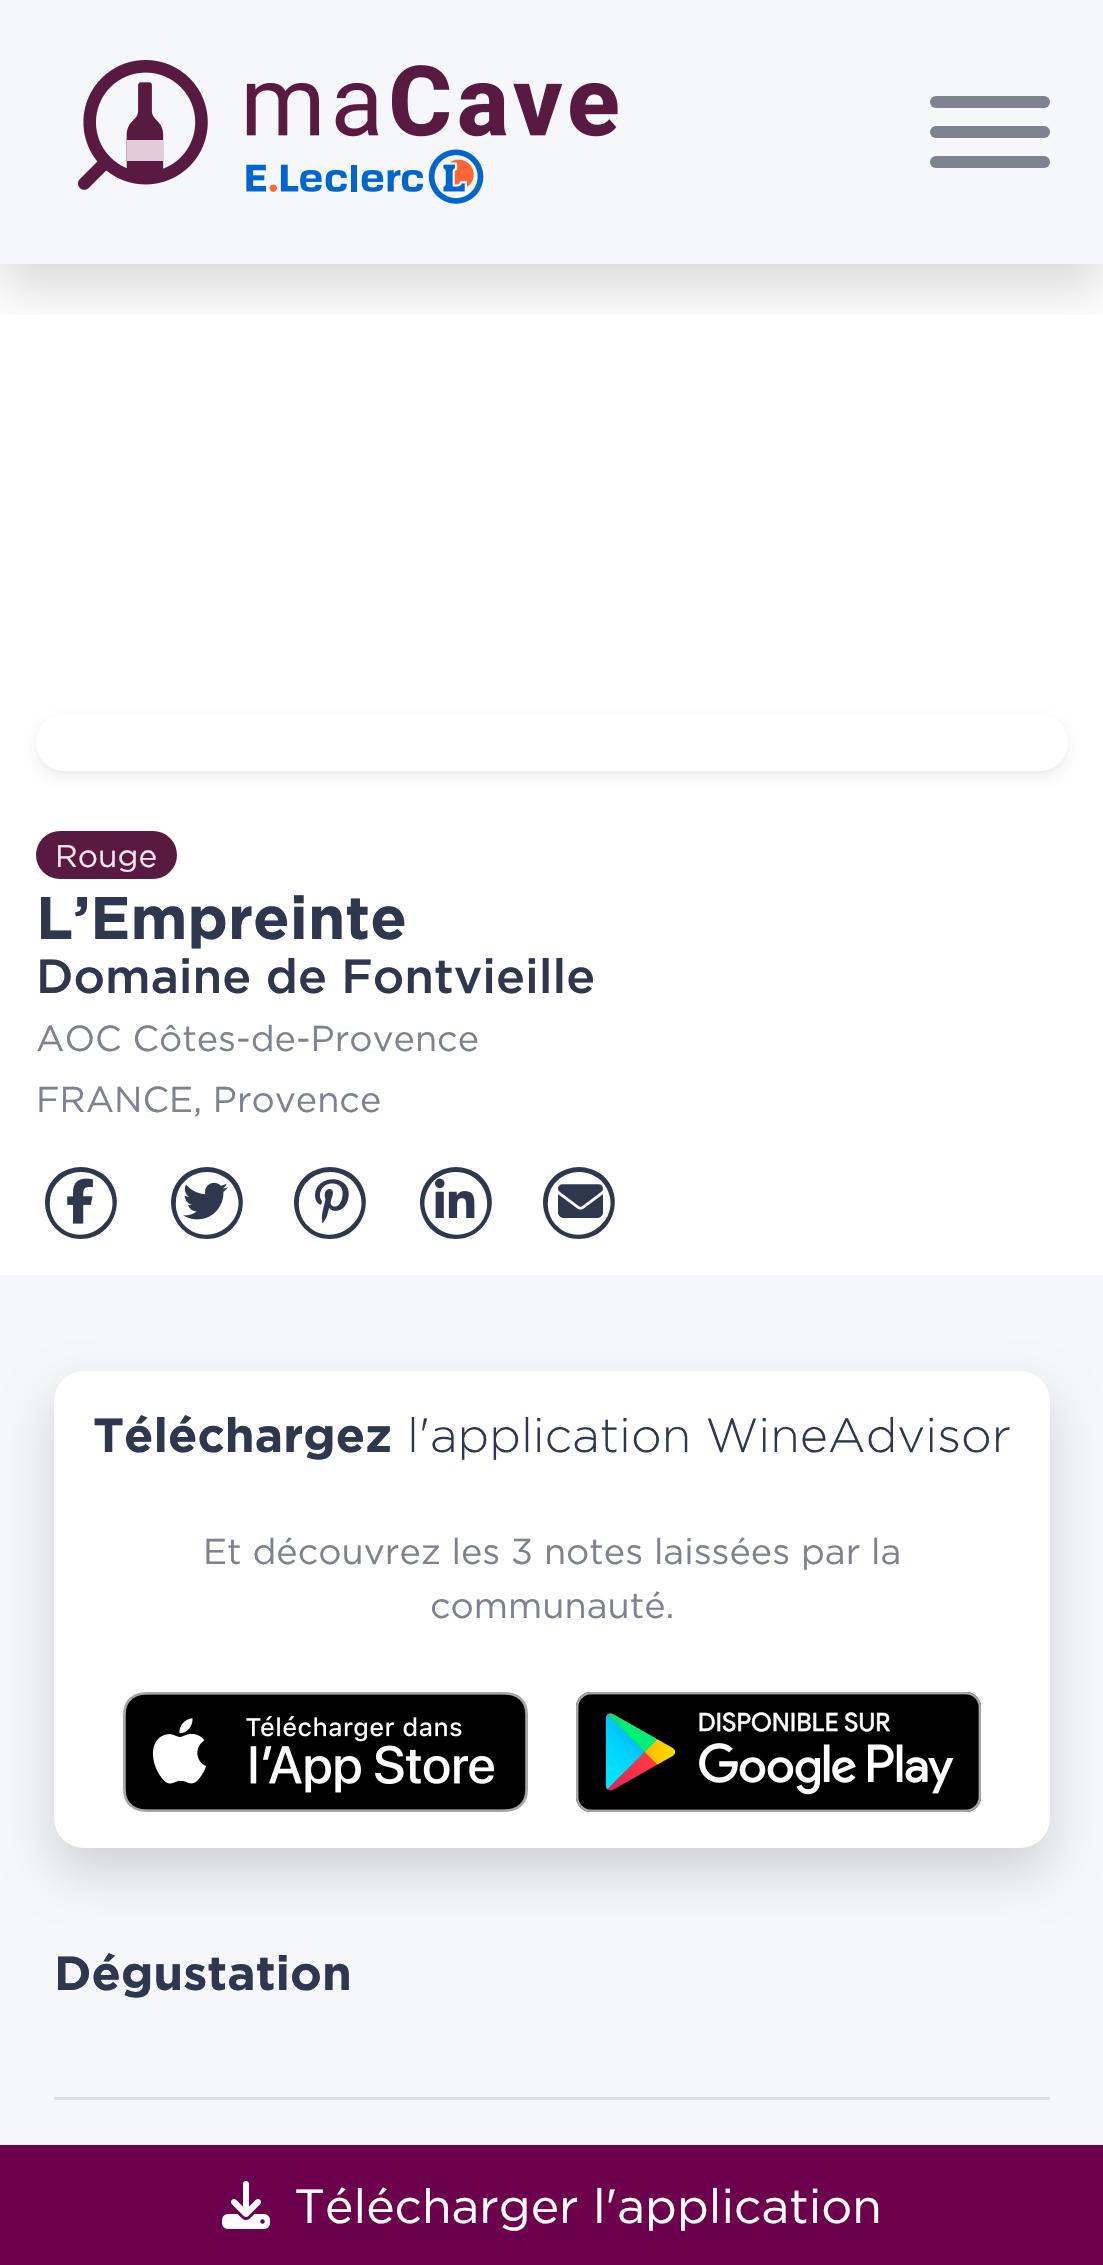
void draw(SkCanvas* canvas) {
    SkPaint paint;
    paint.setAntiAlias(true);
    canvas->clear(0xFFF5F7FB);
    paint.setColor(0xFFFFFFFF);
    canvas->drawRect(SkRect::MakeXYWH(0, 264, 1103, 1011), paint);
    canvas->save();
    canvas->clipRect(SkRect::MakeXYWH(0, 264, 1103, 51));
    paint.setColor(0x26000000);
    paint.setMaskFilter(SkMaskFilter::MakeBlur(kNormal_SkBlurStyle, 24));
    canvas->drawRect(SkRect::MakeXYWH(0, 24, 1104, 264), paint);
    paint.setMaskFilter(nullptr);
    canvas->restore();
    canvas->drawImageRect(SkImages::DeferredFromEncodedData(SkData::MakeFromFileName("img1.png")), SkRect::MakeXYWH(78, 60, 540, 144), SkSamplingOptions());
    paint.setColor(0xFF7E828F);
    canvas->drawRoundRect(SkRect::MakeXYWH(930, 156, 120, 12), 6, 6, paint);
    canvas->drawRoundRect(SkRect::MakeXYWH(930, 96, 120, 12), 6, 6, paint);
    canvas->drawRoundRect(SkRect::MakeXYWH(930, 126, 120, 12), 6, 6, paint);
    paint.setColor(0x12000000);
    paint.setMaskFilter(SkMaskFilter::MakeBlur(kNormal_SkBlurStyle, 6));
    canvas->drawRoundRect(SkRect::MakeXYWH(36, 720, 1032, 57), 28.5f, 28.5f, paint);
    paint.setMaskFilter(nullptr);
    paint.setColor(0xFFFFFFFF);
    canvas->drawRoundRect(SkRect::MakeXYWH(36, 714, 1032, 57), 28.5f, 28.5f, paint);
    paint.setColor(0xFF591A42);
    canvas->drawRoundRect(SkRect::MakeXYWH(36, 831, 141, 48), 24, 24, paint);
    SkFont font1(fontMgr->matchFamilyStyle("Gotham", SkFontStyle::Normal()), 31.5f);
    font1.setSubpixel(true);
    paint.setColor(0xFFF0E5ED);
    canvas->drawString("Rouge", 55, 867, font1, paint);
    SkFont font2(fontMgr->matchFamilyStyle("Gotham", SkFontStyle::Bold()), 60);
    font2.setSubpixel(true);
    paint.setColor(0xFF2E374E);
    canvas->drawString("L’Empreinte", 36, 939, font2, paint);
    SkFont font3(fontMgr->matchFamilyStyle("Gotham", SkFontStyle(500, SkFontStyle::kNormal_Width, SkFontStyle::kUpright_Slant)), 48);
    font3.setSubpixel(true);
    canvas->drawString("Domaine de Fontvieille", 36, 993, font3, paint);
    SkFont font4(fontMgr->matchFamilyStyle("Gotham", SkFontStyle::Normal()), 36);
    font4.setSubpixel(true);
    paint.setColor(0xFF7E828F);
    canvas->drawString("AOC Côtes-de-Provence", 36, 1051, font4, paint);
    canvas->drawString("FRANCE, Provence", 36, 1112, font4, paint);
    paint.setColor(0xFF2E374E);
    canvas->drawPath(SkPathBuilder().moveTo(81, 1172).cubicTo(92, 1172, 103, 1178, 108, 1187).cubicTo(127, 1220, 82, 1252, 57, 1224).cubicTo(52, 1218, 49, 1209, 50, 1201).cubicTo(51, 1184, 65, 1172, 81, 1172).close().moveTo(81, 1239).cubicTo(115, 1239, 130, 1195, 103, 1174).cubicTo(97, 1170, 89, 1167, 81, 1167).cubicTo(73, 1167, 65, 1170, 59, 1174).cubicTo(32, 1195, 47, 1239, 81, 1239).close().detach(), paint);
    canvas->drawImageRect(SkImages::DeferredFromEncodedData(SkData::MakeFromFileName("img2.png")), SkRect::MakeXYWH(67, 1178, 26, 46), SkSamplingOptions());
    canvas->drawPath(SkPathBuilder().moveTo(207, 1172).cubicTo(218, 1172, 229, 1178, 234, 1187).cubicTo(253, 1220, 208, 1252, 183, 1224).cubicTo(178, 1218, 175, 1209, 176, 1201).cubicTo(177, 1184, 191, 1172, 207, 1172).close().moveTo(207, 1239).cubicTo(241, 1239, 256, 1195, 229, 1174).cubicTo(223, 1170, 215, 1167, 207, 1167).cubicTo(199, 1167, 191, 1170, 185, 1174).cubicTo(158, 1195, 173, 1239, 207, 1239).close().detach(), paint);
    canvas->drawImageRect(SkImages::DeferredFromEncodedData(SkData::MakeFromFileName("img3.png")), SkRect::MakeXYWH(183, 1182, 45, 38), SkSamplingOptions());
    canvas->drawPath(SkPathBuilder().moveTo(330, 1172).cubicTo(341, 1172, 352, 1178, 357, 1187).cubicTo(376, 1220, 331, 1252, 306, 1224).cubicTo(301, 1218, 298, 1209, 299, 1201).cubicTo(300, 1184, 314, 1172, 330, 1172).close().moveTo(330, 1239).cubicTo(364, 1239, 379, 1195, 352, 1174).cubicTo(346, 1170, 338, 1167, 330, 1167).cubicTo(322, 1167, 314, 1170, 308, 1174).cubicTo(281, 1195, 296, 1239, 330, 1239).close().detach(), paint);
    canvas->drawImageRect(SkImages::DeferredFromEncodedData(SkData::MakeFromFileName("img4.png")), SkRect::MakeXYWH(315, 1179, 34, 44), SkSamplingOptions());
    canvas->drawPath(SkPathBuilder().moveTo(456, 1172).cubicTo(472, 1172, 486, 1184, 487, 1201).cubicTo(488, 1209, 485, 1218, 480, 1224).cubicTo(455, 1252, 410, 1220, 429, 1187).cubicTo(434, 1178, 445, 1172, 456, 1172).close().moveTo(456, 1239).cubicTo(490, 1239, 505, 1195, 478, 1174).cubicTo(472, 1170, 464, 1167, 456, 1167).cubicTo(448, 1167, 440, 1170, 434, 1174).cubicTo(407, 1195, 422, 1239, 456, 1239).close().detach(), paint);
    canvas->drawImageRect(SkImages::DeferredFromEncodedData(SkData::MakeFromFileName("img5.png")), SkRect::MakeXYWH(435, 1178, 40, 40), SkSamplingOptions());
    canvas->drawPath(SkPathBuilder().moveTo(579, 1172).cubicTo(590, 1172, 601, 1178, 606, 1187).cubicTo(625, 1220, 580, 1252, 555, 1224).cubicTo(550, 1218, 547, 1209, 548, 1201).cubicTo(549, 1184, 563, 1172, 579, 1172).close().moveTo(579, 1239).cubicTo(613, 1239, 628, 1195, 601, 1174).cubicTo(595, 1170, 587, 1167, 579, 1167).cubicTo(571, 1167, 563, 1170, 557, 1174).cubicTo(530, 1195, 545, 1239, 579, 1239).close().detach(), paint);
    canvas->drawImageRect(SkImages::DeferredFromEncodedData(SkData::MakeFromFileName("img6.png")), SkRect::MakeXYWH(558, 1184, 45, 34), SkSamplingOptions());
    paint.setColor(0x26000000);
    paint.setMaskFilter(SkMaskFilter::MakeBlur(kNormal_SkBlurStyle, 24));
    canvas->drawRoundRect(SkRect::MakeXYWH(54, 1395, 996, 477), 30, 30, paint);
    paint.setMaskFilter(nullptr);
    paint.setColor(0xFFFFFFFF);
    canvas->drawRoundRect(SkRect::MakeXYWH(54, 1371, 996, 477), 30, 30, paint);
    SkFont font5(fontMgr->matchFamilyStyle("Gotham", SkFontStyle::Bold()), 48);
    font5.setSubpixel(true);
    paint.setColor(0xFF2E374E);
    canvas->drawString("Téléchargez", 93, 1452, font5, paint);
    SkFont font6(fontMgr->matchFamilyStyle("Gotham", SkFontStyle(300, SkFontStyle::kNormal_Width, SkFontStyle::kUpright_Slant)), 48);
    font6.setSubpixel(true);
    canvas->drawString("l'application WineAdvisor", 407, 1452, font6, paint);
    paint.setColor(0xFF7E828F);
    canvas->drawString("Et découvrez les 3 notes laissées par la", 203, 1564, font4, paint);
    canvas->drawString("communauté.", 430, 1618, font4, paint);
    canvas->drawImageRect(SkImages::DeferredFromEncodedData(SkData::MakeFromFileName("img7.png")), SkRect::MakeXYWH(123, 1692, 405, 120), SkSamplingOptions());
    canvas->drawImageRect(SkImages::DeferredFromEncodedData(SkData::MakeFromFileName("img8.png")), SkRect::MakeXYWH(576, 1692, 405, 120), SkSamplingOptions());
    paint.setColor(0xFFDDE0E6);
    canvas->drawRect(SkRect::MakeXYWH(54, 2097, 996, 3), paint);
    paint.setColor(0xFF2E374E);
    canvas->drawString("Dégustation", 54, 1990, font5, paint);
    paint.setColor(0xFF6D004D);
    canvas->drawRect(SkRect::MakeXYWH(0, 2145, 1103, 120), paint);
    canvas->drawImageRect(SkImages::DeferredFromEncodedData(SkData::MakeFromFileName("img9.png")), SkRect::MakeXYWH(222, 2181, 48, 48), SkSamplingOptions());
    SkFont font7(fontMgr->matchFamilyStyle("Gotham", SkFontStyle::Normal()), 48);
    font7.setSubpixel(true);
    paint.setColor(0xFFFFFFFF);
    canvas->drawString("Télécharger l'application", 294, 2223, font7, paint);
}
